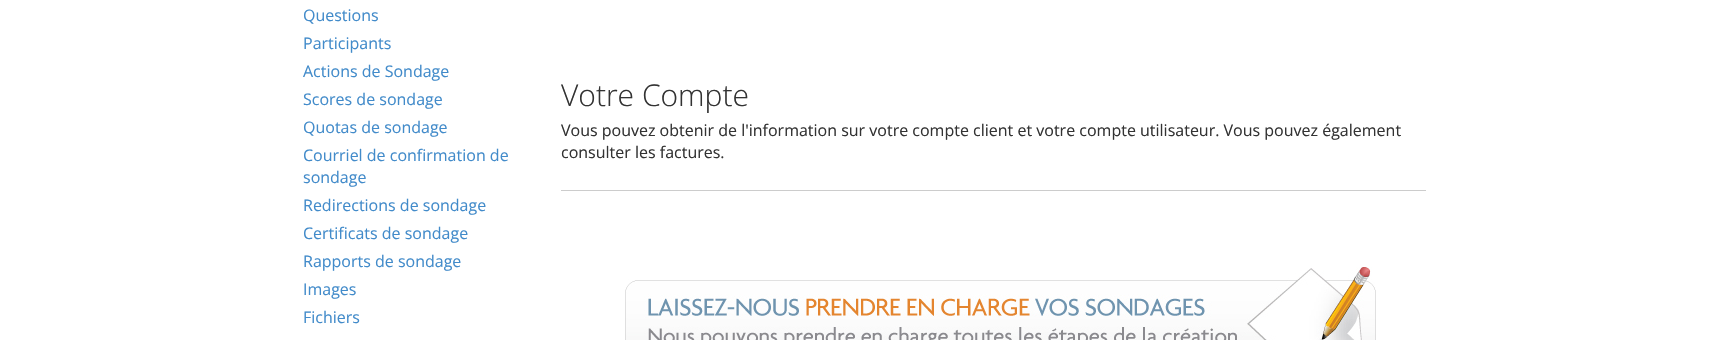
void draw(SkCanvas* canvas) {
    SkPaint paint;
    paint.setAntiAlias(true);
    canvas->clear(0xFFFFFFFF);
    SkFont font1(fontMgr->matchFamilyStyle("Open Sans", SkFontStyle::Normal()), 16);
    font1.setSubpixel(true);
    paint.setColor(0xFF428BCA);
    canvas->drawString("Questions", 303, 21, font1, paint);
    canvas->drawString("Participants", 303, 49, font1, paint);
    canvas->drawString("Actions de Sondage", 303, 77, font1, paint);
    canvas->drawString("Scores de sondage", 303, 105, font1, paint);
    canvas->drawString("Quotas de sondage", 303, 133, font1, paint);
    canvas->drawString("Courriel de confirmation de", 303, 161, font1, paint);
    canvas->drawString("sondage", 303, 183, font1, paint);
    canvas->drawString("Redirections de sondage", 303, 211, font1, paint);
    canvas->drawString("Certificats de sondage", 303, 239, font1, paint);
    canvas->drawString("Rapports de sondage", 303, 267, font1, paint);
    canvas->drawString("Images", 303, 295, font1, paint);
    canvas->drawString("Fichiers", 303, 323, font1, paint);
    paint.setColor(0xFFCCCCCC);
    canvas->drawRect(SkRect::MakeXYWH(561, 190, 865, 1), paint);
    SkFont font2(fontMgr->matchFamilyStyle("Open Sans", SkFontStyle(300, SkFontStyle::kNormal_Width, SkFontStyle::kUpright_Slant)), 30);
    font2.setSubpixel(true);
    paint.setColor(0xFF333333);
    canvas->drawString("Votre Compte", 561, 106, font2, paint);
    canvas->drawString("Vous pouvez obtenir de l'information sur votre compte client et votre compte utilisateur. Vous pouvez également", 561, 136, font1, paint);
    canvas->drawString("consulter les factures.", 561, 158, font1, paint);
    canvas->drawImageRect(SkImages::DeferredFromEncodedData(SkData::MakeFromFileName("img1.png")), SkRect::MakeXYWH(625, 267, 751, 73), SkSamplingOptions());
}
